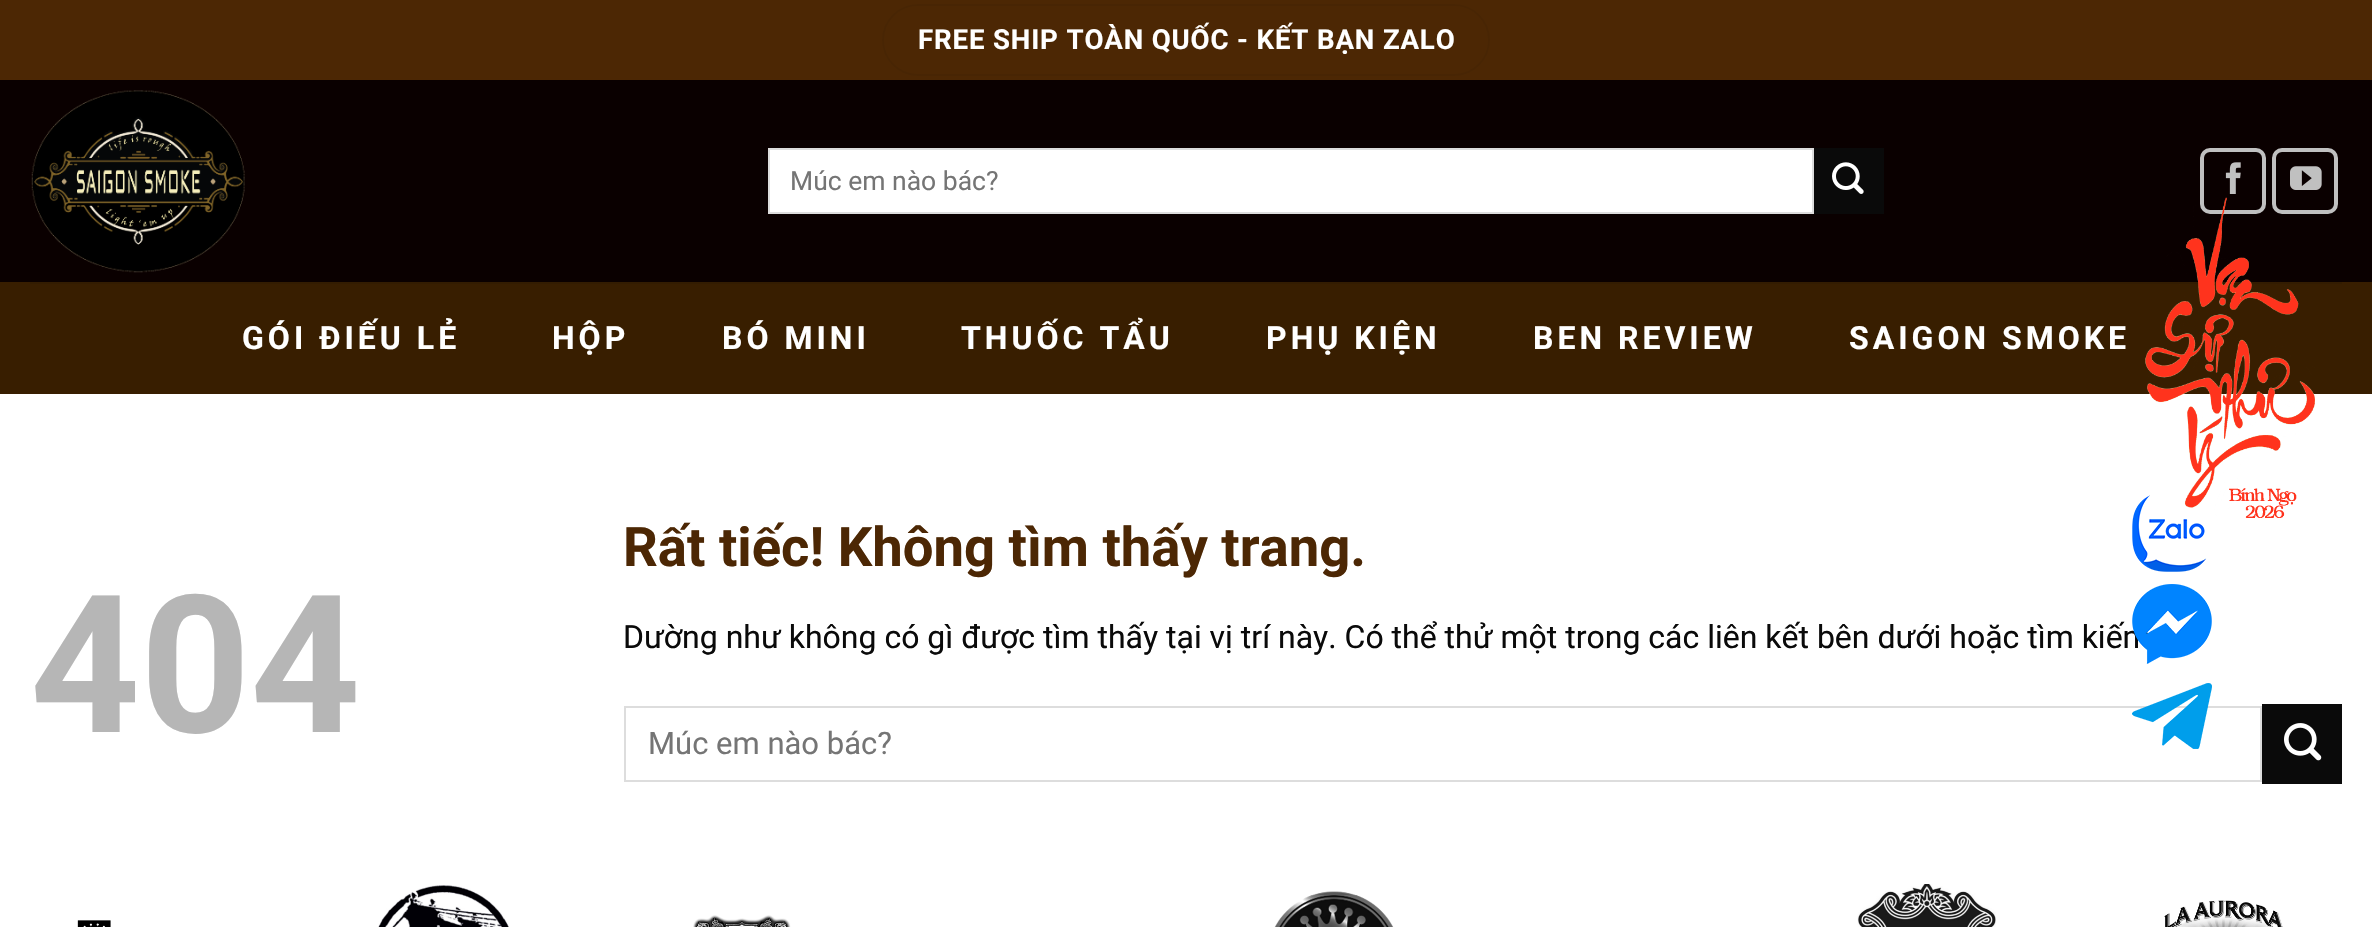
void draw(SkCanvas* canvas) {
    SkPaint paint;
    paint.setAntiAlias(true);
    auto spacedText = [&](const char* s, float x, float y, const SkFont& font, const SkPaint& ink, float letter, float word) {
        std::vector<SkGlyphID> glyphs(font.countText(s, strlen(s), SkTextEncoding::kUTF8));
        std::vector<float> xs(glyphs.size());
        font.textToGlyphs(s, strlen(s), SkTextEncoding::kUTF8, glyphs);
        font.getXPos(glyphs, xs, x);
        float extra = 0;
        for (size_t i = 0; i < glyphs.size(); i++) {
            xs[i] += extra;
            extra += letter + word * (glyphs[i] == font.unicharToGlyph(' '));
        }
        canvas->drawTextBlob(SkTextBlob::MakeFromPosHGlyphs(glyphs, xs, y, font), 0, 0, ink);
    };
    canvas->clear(0xFFFFFFFF);
    paint.setColor(0xFF4C2704);
    canvas->drawRect(SkRect::MakeXYWH(0, 0, 2372, 80), paint);
    paint.setStyle(SkPaint::kStroke_Style);
    paint.setStrokeWidth(2);
    paint.setColor(0xFF482504);
    canvas->drawRoundRect(SkRect::MakeXYWH(883, 5, 606, 70), 35, 35, paint);
    SkFont font1(fontMgr->matchFamilyStyle("Roboto", SkFontStyle::Bold()), 27.6f);
    font1.setSubpixel(true);
    paint.setStyle(SkPaint::kFill_Style);
    paint.setColor(0xFFFFFFFF);
    spacedText("FREE SHIP TOÀN QUỐC - KẾT BẠN ZALO", 918, 49, font1, paint, 0.85f, 0);
    paint.setColor(0xFF0A0000);
    canvas->drawRect(SkRect::MakeXYWH(0, 80, 2372, 202), paint);
    canvas->drawImageRect(SkImages::DeferredFromEncodedData(SkData::MakeFromFileName("img1.png")), SkRect::MakeXYWH(31, 90, 214, 183), SkSamplingOptions());
    paint.setColor(0xFFFFFFFF);
    canvas->drawRect(SkRect::MakeXYWH(769, 149, 1044, 64), paint);
    paint.setStyle(SkPaint::kStroke_Style);
    paint.setColor(0xFFDDDDDD);
    canvas->drawRect(SkRect::MakeXYWH(769, 149, 1044, 64), paint);
    SkFont font2(fontMgr->matchFamilyStyle("Roboto", SkFontStyle::Normal()), 26.5f);
    font2.setSubpixel(true);
    paint.setStyle(SkPaint::kFill_Style);
    paint.setColor(0xFF757575);
    canvas->drawString("Múc em nào bác?", 790, 190, font2, paint);
    paint.setColor(0xFF0A0A0A);
    canvas->drawRect(SkRect::MakeXYWH(1814, 148, 70, 66), paint);
    canvas->drawImageRect(SkImages::DeferredFromEncodedData(SkData::MakeFromFileName("img2.png")), SkRect::MakeXYWH(1832, 162, 32, 32), SkSamplingOptions());
    paint.setStyle(SkPaint::kStroke_Style);
    paint.setStrokeWidth(4);
    paint.setColor(0xFFC0C0C0);
    canvas->drawRoundRect(SkRect::MakeXYWH(2202, 150, 62, 62), 8, 8, paint);
    canvas->drawImageRect(SkImages::DeferredFromEncodedData(SkData::MakeFromFileName("img3.png")), SkRect::MakeXYWH(2225, 162, 16, 32), SkSamplingOptions());
    canvas->drawRoundRect(SkRect::MakeXYWH(2274, 150, 62, 62), 8, 8, paint);
    canvas->drawImageRect(SkImages::DeferredFromEncodedData(SkData::MakeFromFileName("img4.png")), SkRect::MakeXYWH(2290, 166, 32, 24), SkSamplingOptions());
    paint.setStyle(SkPaint::kFill_Style);
    paint.setColor(0xFF381E00);
    canvas->drawRect(SkRect::MakeXYWH(0, 282, 2372, 112), paint);
    paint.setColor(0xFF331C01);
    canvas->drawRect(SkRect::MakeXYWH(30, 282, 2312, 2), paint);
    SkFont font3(fontMgr->matchFamilyStyle("Roboto", SkFontStyle::Bold()), 32);
    font3.setSubpixel(true);
    paint.setColor(0xFFFFFFFF);
    spacedText("GÓI ĐIẾU LẺ", 242, 349, font3, paint, 4, 0);
    spacedText("HỘP", 552, 349, font3, paint, 4, 0);
    spacedText("BÓ MINI", 722, 349, font3, paint, 4, 0);
    spacedText("THUỐC TẨU", 961, 349, font3, paint, 4, 0);
    spacedText("PHỤ KIỆN", 1266, 349, font3, paint, 4, 0);
    spacedText("BEN REVIEW", 1533, 349, font3, paint, 4, 0);
    spacedText("SAIGON SMOKE", 1849, 349, font3, paint, 4, 0);
    SkFont font4(fontMgr->matchFamilyStyle("Roboto", SkFontStyle::Bold()), 192);
    font4.setSubpixel(true);
    paint.setColor(0xFFB6B6B6);
    canvas->drawString("404", 30, 732, font4, paint);
    SkFont font5(fontMgr->matchFamilyStyle("Roboto", SkFontStyle::Bold()), 54.4f);
    font5.setSubpixel(true);
    paint.setColor(0xFF4C2704);
    canvas->drawString("Rất tiếc! Không tìm thấy trang.", 623, 566, font5, paint);
    SkFont font6(fontMgr->matchFamilyStyle("Roboto", SkFontStyle::Normal()), 32);
    font6.setSubpixel(true);
    paint.setColor(0xFF0A0A0A);
    canvas->drawString("Dường như không có gì được tìm thấy tại vị trí này. Có thể thử một trong các liên kết bên dưới hoặc tìm kiếm", 623, 648, font6, paint);
    paint.setStyle(SkPaint::kStroke_Style);
    paint.setStrokeWidth(2);
    paint.setColor(0xFFDDDDDD);
    canvas->drawRect(SkRect::MakeXYWH(625, 707, 1636, 74), paint);
    SkFont font7(fontMgr->matchFamilyStyle("Roboto", SkFontStyle::Normal()), 31);
    font7.setSubpixel(true);
    paint.setStyle(SkPaint::kFill_Style);
    paint.setColor(0xFF757575);
    canvas->drawString("Múc em nào bác?", 648, 754, font7, paint);
    paint.setColor(0xFF0A0A0A);
    canvas->drawRect(SkRect::MakeXYWH(2262, 704, 80, 80), paint);
    canvas->drawImageRect(SkImages::DeferredFromEncodedData(SkData::MakeFromFileName("img5.png")), SkRect::MakeXYWH(2284, 723, 38, 38), SkSamplingOptions());
    canvas->drawImageRect(SkImages::DeferredFromEncodedData(SkData::MakeFromFileName("img6.png")), SkRect::MakeXYWH(77, 920, 34, 7), SkSamplingOptions());
    canvas->drawImageRect(SkImages::DeferredFromEncodedData(SkData::MakeFromFileName("img7.png")), SkRect::MakeXYWH(378, 885, 131, 42), SkSamplingOptions());
    canvas->drawImageRect(SkImages::DeferredFromEncodedData(SkData::MakeFromFileName("img8.png")), SkRect::MakeXYWH(693, 915, 98, 12), SkSamplingOptions());
    canvas->drawImageRect(SkImages::DeferredFromEncodedData(SkData::MakeFromFileName("img9.png")), SkRect::MakeXYWH(1274, 891, 120, 36), SkSamplingOptions());
    canvas->drawImageRect(SkImages::DeferredFromEncodedData(SkData::MakeFromFileName("img10.png")), SkRect::MakeXYWH(1857, 884, 139, 43), SkSamplingOptions());
    canvas->drawImageRect(SkImages::DeferredFromEncodedData(SkData::MakeFromFileName("img11.png")), SkRect::MakeXYWH(2164, 900, 119, 27), SkSamplingOptions());
    canvas->drawImageRect(SkImages::DeferredFromEncodedData(SkData::MakeFromFileName("img13.png")), SkRect::MakeXYWH(2132, 495, 75, 77), SkSamplingOptions());
    canvas->drawImageRect(SkImages::DeferredFromEncodedData(SkData::MakeFromFileName("img12.png")), SkRect::MakeXYWH(2145, 197, 170, 321), SkSamplingOptions());
    canvas->drawImageRect(SkImages::DeferredFromEncodedData(SkData::MakeFromFileName("img14.png")), SkRect::MakeXYWH(2132, 584, 80, 80), SkSamplingOptions());
    canvas->drawImageRect(SkImages::DeferredFromEncodedData(SkData::MakeFromFileName("img15.png")), SkRect::MakeXYWH(2132, 683, 80, 66), SkSamplingOptions());
}
